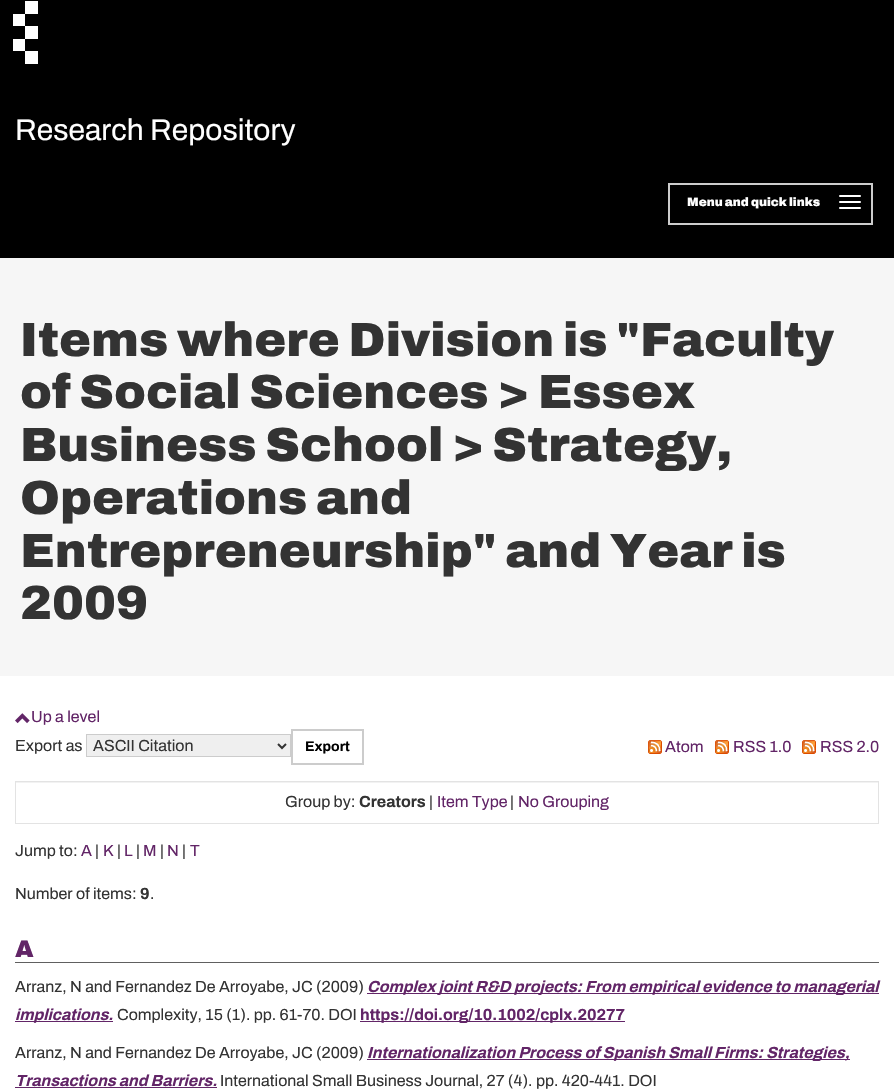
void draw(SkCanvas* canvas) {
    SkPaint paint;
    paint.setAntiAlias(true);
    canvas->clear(0xFFFFFFFF);
    paint.setColor(0xFF000000);
    canvas->drawRect(SkRect::MakeXYWH(0, 0, 894, 258), paint);
    paint.setColor(0xFFFFFFFF);
    canvas->drawRect(SkRect::MakeXYWH(25, 1, 13, 13), paint);
    canvas->drawRect(SkRect::MakeXYWH(13, 14, 12, 12), paint);
    canvas->drawRect(SkRect::MakeXYWH(25, 26, 13, 13), paint);
    canvas->drawRect(SkRect::MakeXYWH(13, 39, 12, 12), paint);
    canvas->drawRect(SkRect::MakeXYWH(25, 51, 13, 13), paint);
    SkFont font1(fontMgr->matchFamilyStyle("Archivo", SkFontStyle::Normal()), 30);
    font1.setSubpixel(true);
    canvas->drawString("Research Repository", 15, 140, font1, paint);
    paint.setStyle(SkPaint::kStroke_Style);
    paint.setStrokeWidth(2);
    paint.setColor(0xFFCCCCCC);
    canvas->drawRect(SkRect::MakeXYWH(669, 184, 203, 40), paint);
    SkFont font2(fontMgr->matchFamilyStyle("Archivo", SkFontStyle(900, SkFontStyle::kNormal_Width, SkFontStyle::kUpright_Slant)), 12);
    font2.setSubpixel(true);
    paint.setStyle(SkPaint::kFill_Style);
    paint.setColor(0xFFFFFFFF);
    canvas->drawString("Menu and quick links", 687, 206, font2, paint);
    canvas->drawRoundRect(SkRect::MakeXYWH(839, 195, 22, 2), 1, 1, paint);
    canvas->drawRoundRect(SkRect::MakeXYWH(839, 201, 22, 2), 1, 1, paint);
    canvas->drawRoundRect(SkRect::MakeXYWH(839, 207, 22, 2), 1, 1, paint);
    paint.setColor(0xFFF6F6F6);
    canvas->drawRect(SkRect::MakeXYWH(0, 258, 894, 418), paint);
    SkFont font3(fontMgr->matchFamilyStyle("Archivo", SkFontStyle(900, SkFontStyle::kNormal_Width, SkFontStyle::kUpright_Slant)), 48);
    font3.setSubpixel(true);
    paint.setColor(0xFF333333);
    canvas->drawString("Items where Division is \"Faculty", 20, 356, font3, paint);
    canvas->drawString("of Social Sciences > Essex", 20, 408, font3, paint);
    canvas->drawString("Business School > Strategy,", 20, 461, font3, paint);
    canvas->drawString("Operations and", 20, 514, font3, paint);
    canvas->drawString("Entrepreneurship\" and Year is", 20, 567, font3, paint);
    canvas->drawString("2009", 20, 619, font3, paint);
    canvas->drawImageRect(SkImages::DeferredFromEncodedData(SkData::MakeFromFileName("img1.png")), SkRect::MakeXYWH(15, 713, 15, 11), SkSamplingOptions());
    SkFont font4(fontMgr->matchFamilyStyle("Archivo", SkFontStyle::Normal()), 16);
    font4.setSubpixel(true);
    paint.setColor(0xFF622567);
    canvas->drawString("Up a level", 31, 722, font4, paint);
    paint.setColor(0xFF333333);
    canvas->drawString("Export as", 15, 751, font4, paint);
    paint.setColor(0xFFEFEFEF);
    canvas->drawRect(SkRect::MakeXYWH(86.5f, 734.5f, 204, 22), paint);
    paint.setStyle(SkPaint::kStroke_Style);
    paint.setStrokeWidth(1);
    paint.setColor(0xFFCCCCCC);
    canvas->drawRect(SkRect::MakeXYWH(86.5f, 734.5f, 204, 22), paint);
    paint.setStrokeWidth(2);
    paint.setColor(0xFF333333);
    canvas->drawPath(SkPathBuilder().moveTo(278, 744).lineTo(282, 748).lineTo(286, 744).detach(), paint);
    paint.setStyle(SkPaint::kFill_Style);
    canvas->drawString("ASCII Citation", 93, 751, font4, paint);
    paint.setStyle(SkPaint::kStroke_Style);
    paint.setColor(0xFFCCCCCC);
    canvas->drawRect(SkRect::MakeXYWH(292, 730, 71, 34), paint);
    SkFont font5(fontMgr->matchFamilyStyle("Archivo", SkFontStyle::Bold()), 14);
    font5.setSubpixel(true);
    paint.setStyle(SkPaint::kFill_Style);
    paint.setColor(0xFF000000);
    canvas->drawString("Export", 305, 751, font5, paint);
    canvas->drawImageRect(SkImages::DeferredFromEncodedData(SkData::MakeFromFileName("img2.png")), SkRect::MakeXYWH(648, 740, 14, 14), SkSamplingOptions());
    paint.setColor(0xFF622567);
    canvas->drawString("Atom", 665, 752, font4, paint);
    canvas->drawImageRect(SkImages::DeferredFromEncodedData(SkData::MakeFromFileName("img2.png")), SkRect::MakeXYWH(715, 740, 14, 14), SkSamplingOptions());
    canvas->drawString("RSS 1.0", 733, 752, font4, paint);
    canvas->drawImageRect(SkImages::DeferredFromEncodedData(SkData::MakeFromFileName("img2.png")), SkRect::MakeXYWH(802, 740, 14, 14), SkSamplingOptions());
    canvas->drawString("RSS 2.0", 820, 752, font4, paint);
    paint.setColor(0xFFF2F2F2);
    canvas->drawRect(SkRect::MakeXYWH(16, 782, 862, 1), paint);
    paint.setStyle(SkPaint::kStroke_Style);
    paint.setStrokeWidth(1);
    paint.setColor(0xFFE3E3E3);
    canvas->drawRect(SkRect::MakeXYWH(15.5f, 781.5f, 863, 42), paint);
    paint.setStyle(SkPaint::kFill_Style);
    paint.setColor(0xFF333333);
    canvas->drawString("Group by:", 285, 807, font4, paint);
    SkFont font6(fontMgr->matchFamilyStyle("Archivo", SkFontStyle::Bold()), 16);
    font6.setSubpixel(true);
    canvas->drawString("Creators", 359, 807, font6, paint);
    canvas->drawString("|", 429, 807, font4, paint);
    paint.setColor(0xFF622567);
    canvas->drawString("Item Type", 437, 807, font4, paint);
    paint.setColor(0xFF333333);
    canvas->drawString("|", 510, 807, font4, paint);
    paint.setColor(0xFF622567);
    canvas->drawString("No Grouping", 518, 807, font4, paint);
    paint.setColor(0xFF333333);
    canvas->drawString("Jump to:", 15, 856, font4, paint);
    paint.setColor(0xFF622567);
    canvas->drawString("A", 81, 856, font4, paint);
    paint.setColor(0xFF333333);
    canvas->drawString("|", 95, 856, font4, paint);
    paint.setColor(0xFF622567);
    canvas->drawString("K", 103, 856, font4, paint);
    paint.setColor(0xFF333333);
    canvas->drawString("|", 117, 856, font4, paint);
    paint.setColor(0xFF622567);
    canvas->drawString("L", 124, 856, font4, paint);
    paint.setColor(0xFF333333);
    canvas->drawString("|", 136, 856, font4, paint);
    paint.setColor(0xFF622567);
    canvas->drawString("M", 143, 856, font4, paint);
    paint.setColor(0xFF333333);
    canvas->drawString("|", 160, 856, font4, paint);
    paint.setColor(0xFF622567);
    canvas->drawString("N", 167, 856, font4, paint);
    paint.setColor(0xFF333333);
    canvas->drawString("|", 182, 856, font4, paint);
    paint.setColor(0xFF622567);
    canvas->drawString("T", 190, 856, font4, paint);
    paint.setColor(0xFF333333);
    canvas->drawString("Number of items:", 15, 899, font4, paint);
    canvas->drawString("9", 140, 899, font6, paint);
    canvas->drawString(".", 150, 899, font4, paint);
    paint.setColor(0xFF606060);
    canvas->drawRect(SkRect::MakeXYWH(15, 962, 864, 1), paint);
    SkFont font7(fontMgr->matchFamilyStyle("Archivo", SkFontStyle(900, SkFontStyle::kNormal_Width, SkFontStyle::kUpright_Slant)), 24);
    font7.setSubpixel(true);
    paint.setColor(0xFF622567);
    canvas->drawString("A", 15, 957, font7, paint);
    paint.setColor(0xFF333333);
    canvas->drawString("Arranz, N and Fernandez De Arroyabe, JC (2009)", 15, 992, font4, paint);
    paint.setColor(0xFF622567);
    canvas->drawRect(SkRect::MakeXYWH(367, 993, 512, 1), paint);
    SkFont font8(fontMgr->matchFamilyStyle("Archivo", SkFontStyle::BoldItalic()), 16);
    font8.setSubpixel(true);
    canvas->drawString("Complex joint R&D projects: From empirical evidence to managerial", 367, 992, font8, paint);
    canvas->drawRect(SkRect::MakeXYWH(15, 1021, 98, 1), paint);
    canvas->drawString("implications.", 15, 1020, font8, paint);
    paint.setColor(0xFF333333);
    canvas->drawString("Complexity, 15 (1). pp. 61-70. DOI", 117, 1020, font4, paint);
    paint.setColor(0xFF622567);
    canvas->drawRect(SkRect::MakeXYWH(360, 1021, 265, 1), paint);
    canvas->drawString("https://doi.org/10.1002/cplx.20277", 360, 1020, font6, paint);
    paint.setColor(0xFF333333);
    canvas->drawString("Arranz, N and Fernandez De Arroyabe, JC (2009)", 15, 1058, font4, paint);
    paint.setColor(0xFF622567);
    canvas->drawRect(SkRect::MakeXYWH(367, 1059, 483, 1), paint);
    canvas->drawString("Internationalization Process of Spanish Small Firms: Strategies,", 367, 1058, font8, paint);
    canvas->drawString("Transactions and Barriers.", 15, 1086, font8, paint);
    canvas->drawRect(SkRect::MakeXYWH(15, 1087, 202, 1), paint);
    paint.setColor(0xFF333333);
    canvas->drawString("International Small Business Journal, 27 (4). pp. 420-441. DOI", 220, 1086, font4, paint);
}
